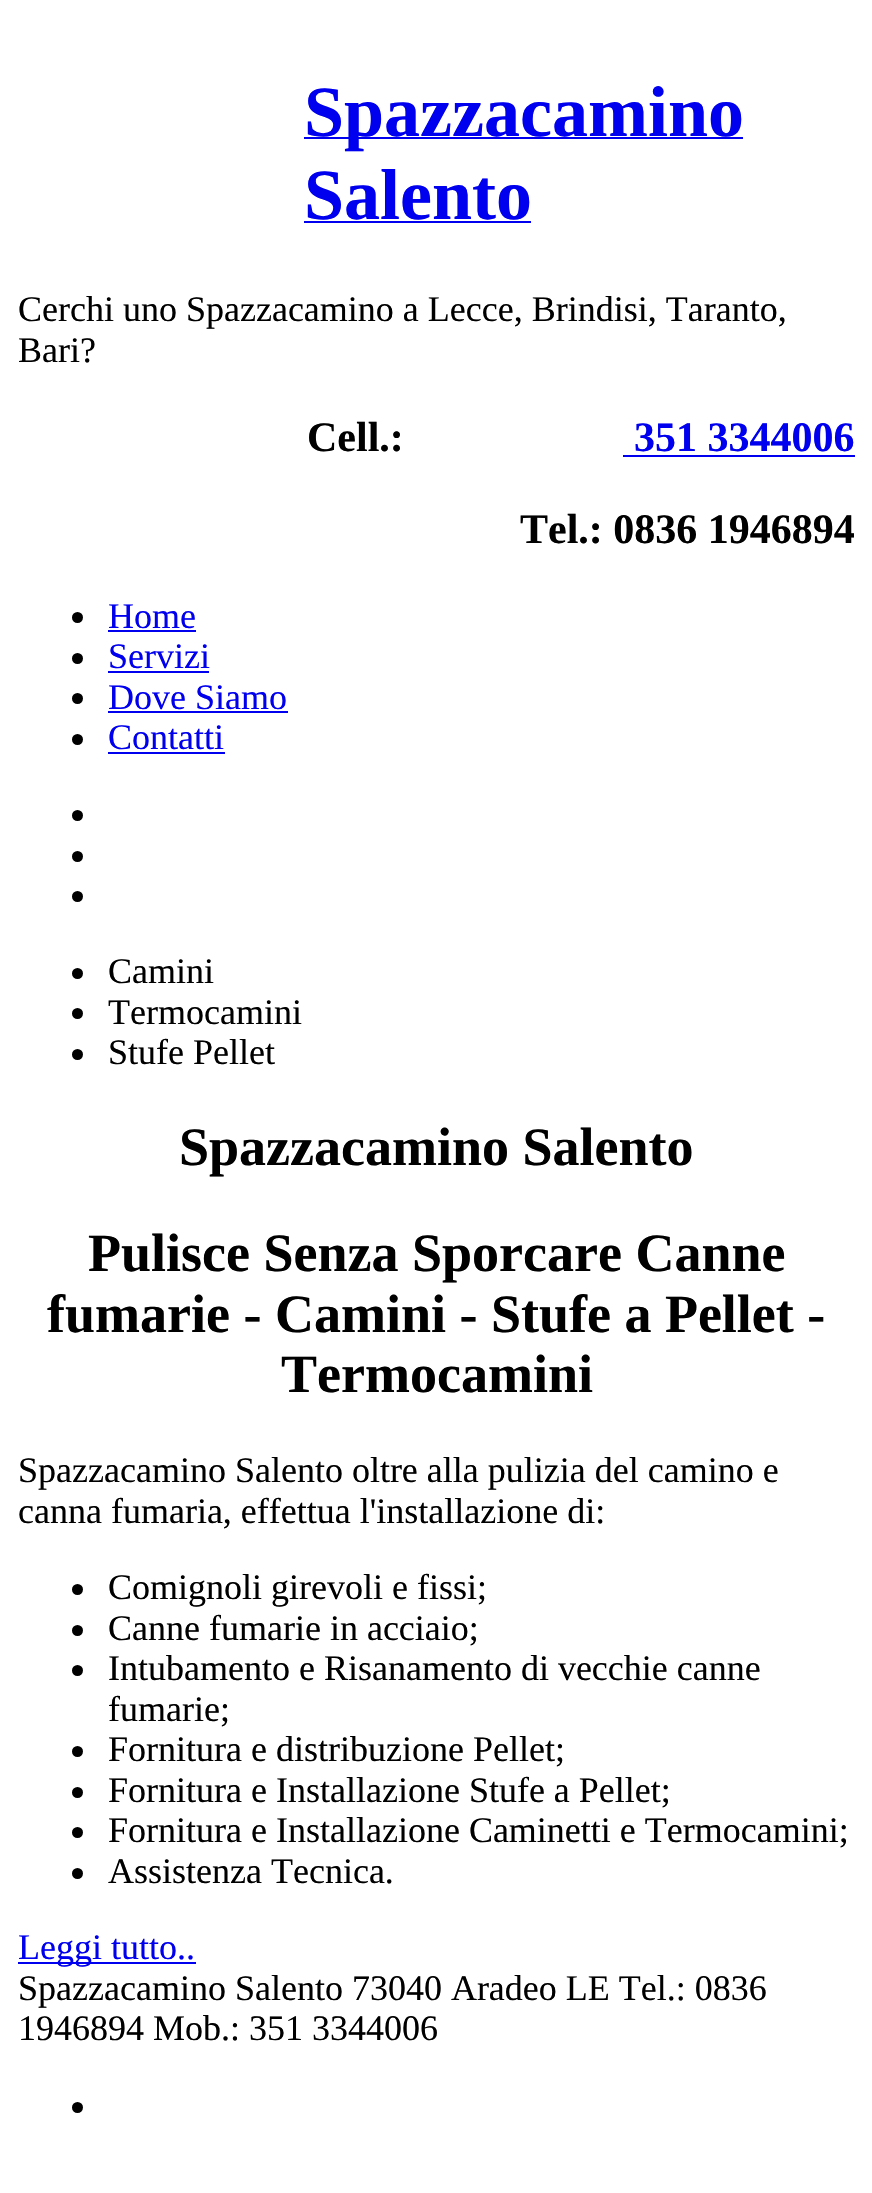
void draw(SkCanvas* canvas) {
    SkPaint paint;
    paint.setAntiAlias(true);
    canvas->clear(0xFFFFFFFF);
    paint.setColor(0xFF0000EE);
    canvas->drawRect(SkRect::MakeXYWH(304, 137, 439, 2), paint);
    SkFont font1(fontMgr->matchFamilyStyle("Liberation Serif", SkFontStyle::Bold()), 72);
    font1.setSubpixel(true);
    canvas->drawString("Spazzacamino", 304, 136, font1, paint);
    canvas->drawString("Salento", 304, 219, font1, paint);
    canvas->drawRect(SkRect::MakeXYWH(304, 221, 227, 2), paint);
    SkFont font2(fontMgr->matchFamilyStyle("Liberation Serif", SkFontStyle::Normal()), 36);
    font2.setSubpixel(true);
    paint.setColor(0xFF000000);
    canvas->drawString("Cerchi uno Spazzacamino a Lecce, Brindisi, Taranto,", 18, 321, font2, paint);
    canvas->drawString("Bari?", 18, 362, font2, paint);
    SkFont font3(fontMgr->matchFamilyStyle("Liberation Serif", SkFontStyle::Bold()), 42);
    font3.setSubpixel(true);
    canvas->drawString("Cell.:", 307, 451, font3, paint);
    paint.setColor(0xFF0000EE);
    canvas->drawString("351 3344006", 634, 451, font3, paint);
    canvas->drawRect(SkRect::MakeXYWH(623, 455, 232, 2), paint);
    paint.setColor(0xFF000000);
    canvas->drawString("Tel.: 0836 1946894", 520, 543, font3, paint);
    canvas->drawCircle(77.5f, 617.5f, 5.5f, paint);
    paint.setColor(0xFF0000EE);
    canvas->drawString("Home", 108, 628, font2, paint);
    canvas->drawRect(SkRect::MakeXYWH(108, 630, 88, 2), paint);
    paint.setColor(0xFF000000);
    canvas->drawCircle(77.5f, 658.5f, 5.5f, paint);
    paint.setColor(0xFF0000EE);
    canvas->drawString("Servizi", 108, 668, font2, paint);
    canvas->drawRect(SkRect::MakeXYWH(108, 671, 101, 2), paint);
    paint.setColor(0xFF000000);
    canvas->drawCircle(77.5f, 698.5f, 5.5f, paint);
    paint.setColor(0xFF0000EE);
    canvas->drawString("Dove Siamo", 108, 709, font2, paint);
    canvas->drawRect(SkRect::MakeXYWH(108, 711, 180, 2), paint);
    paint.setColor(0xFF000000);
    canvas->drawCircle(77.5f, 739.5f, 5.5f, paint);
    paint.setColor(0xFF0000EE);
    canvas->drawString("Contatti", 108, 749, font2, paint);
    canvas->drawRect(SkRect::MakeXYWH(108, 752, 117, 2), paint);
    paint.setColor(0xFF000000);
    canvas->drawCircle(77.5f, 815.5f, 5.5f, paint);
    canvas->drawCircle(77.5f, 856.5f, 5.5f, paint);
    canvas->drawCircle(77.5f, 896.5f, 5.5f, paint);
    canvas->drawCircle(77.5f, 973.5f, 5.5f, paint);
    canvas->drawString("Camini", 108, 983, font2, paint);
    canvas->drawCircle(77.5f, 1013.5f, 5.5f, paint);
    canvas->drawString("Termocamini", 108, 1024, font2, paint);
    canvas->drawCircle(77.5f, 1054.5f, 5.5f, paint);
    canvas->drawString("Stufe Pellet", 108, 1064, font2, paint);
    SkFont font4(fontMgr->matchFamilyStyle("Liberation Serif", SkFontStyle::Bold()), 54);
    font4.setSubpixel(true);
    canvas->drawString("Spazzacamino Salento", 179, 1165, font4, paint);
    canvas->drawString("Pulisce Senza Sporcare Canne", 88, 1271, font4, paint);
    canvas->drawString("fumarie - Camini - Stufe a Pellet -", 47, 1332, font4, paint);
    canvas->drawString("Termocamini", 281, 1392, font4, paint);
    canvas->drawString("Spazzacamino Salento oltre alla pulizia del camino e", 18, 1482, font2, paint);
    canvas->drawString("canna fumaria, effettua l'installazione di:", 18, 1523, font2, paint);
    canvas->drawCircle(77.5f, 1589.5f, 5.5f, paint);
    canvas->drawString("Comignoli girevoli e fissi;", 108, 1599, font2, paint);
    canvas->drawCircle(77.5f, 1630.5f, 5.5f, paint);
    canvas->drawString("Canne fumarie in acciaio;", 108, 1640, font2, paint);
    canvas->drawCircle(77.5f, 1670.5f, 5.5f, paint);
    canvas->drawString("Intubamento e Risanamento di vecchie canne", 108, 1680, font2, paint);
    canvas->drawString("fumarie;", 108, 1721, font2, paint);
    canvas->drawCircle(77.5f, 1751.5f, 5.5f, paint);
    canvas->drawString("Fornitura e distribuzione Pellet;", 108, 1761, font2, paint);
    canvas->drawCircle(77.5f, 1792.5f, 5.5f, paint);
    canvas->drawString("Fornitura e Installazione Stufe a Pellet;", 108, 1802, font2, paint);
    canvas->drawCircle(77.5f, 1832.5f, 5.5f, paint);
    canvas->drawString("Fornitura e Installazione Caminetti e Termocamini;", 108, 1842, font2, paint);
    canvas->drawCircle(77.5f, 1873.5f, 5.5f, paint);
    canvas->drawString("Assistenza Tecnica.", 108, 1883, font2, paint);
    paint.setColor(0xFF0000EE);
    canvas->drawRect(SkRect::MakeXYWH(18, 1962, 178, 2), paint);
    canvas->drawString("Leggi tutto..", 18, 1959, font2, paint);
    paint.setColor(0xFF000000);
    canvas->drawString("Spazzacamino Salento 73040 Aradeo LE Tel.: 0836", 18, 2000, font2, paint);
    canvas->drawString("1946894 Mob.: 351 3344006", 18, 2040, font2, paint);
    canvas->drawCircle(77.5f, 2107.5f, 5.5f, paint);
}
